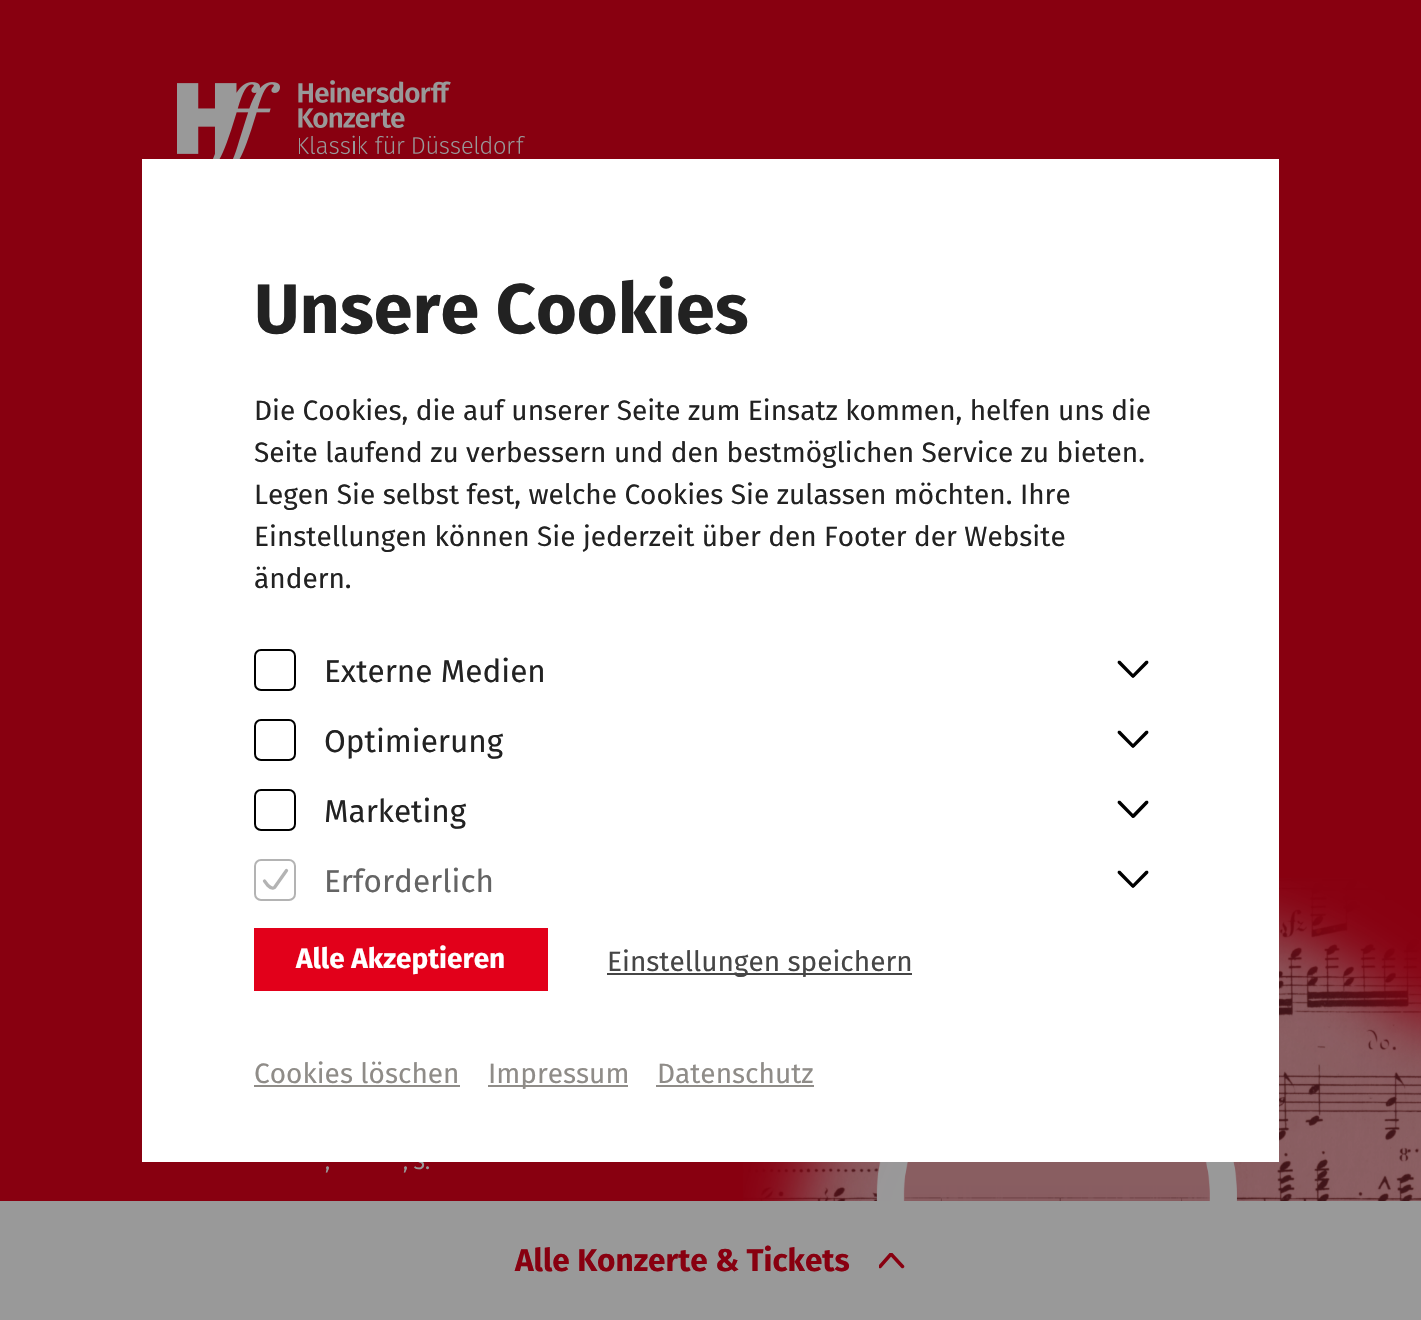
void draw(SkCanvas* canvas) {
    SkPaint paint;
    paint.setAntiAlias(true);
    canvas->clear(0xFF880010);
    canvas->drawImageRect(SkImages::DeferredFromEncodedData(SkData::MakeFromFileName("img1.png")), SkRect::MakeXYWH(177, 80, 348, 79), SkSamplingOptions());
    canvas->drawImageRect(SkImages::DeferredFromEncodedData(SkData::MakeFromFileName("img2.png")), SkRect::MakeXYWH(743, 878, 678, 323), SkSamplingOptions());
    SkFont font1(fontMgr->matchFamilyStyle("Fira Sans", SkFontStyle::Normal()), 21);
    font1.setSubpixel(true);
    paint.setColor(0xFF999999);
    canvas->drawString(", S.", 403, 1169, font1, paint);
    paint.setColor(0xFFFFFFFF);
    canvas->drawRect(SkRect::MakeXYWH(142, 159, 1137, 1003), paint);
    SkFont font2(fontMgr->matchFamilyStyle("Fira Sans", SkFontStyle::Bold()), 70);
    font2.setSubpixel(true);
    paint.setColor(0xFF222222);
    canvas->drawString("Unsere Cookies", 254, 333, font2, paint);
    SkFont font3(fontMgr->matchFamilyStyle("Fira Sans", SkFontStyle::Normal()), 28);
    font3.setSubpixel(true);
    canvas->drawString("Die Cookies, die auf unserer Seite zum Einsatz kommen, helfen uns die", 254, 420, font3, paint);
    canvas->drawString("Seite laufend zu verbessern und den bestmöglichen Service zu bieten.", 254, 462, font3, paint);
    canvas->drawString("Legen Sie selbst fest, welche Cookies Sie zulassen möchten. Ihre", 254, 504, font3, paint);
    canvas->drawString("Einstellungen können Sie jederzeit über den Footer der Website", 254, 546, font3, paint);
    canvas->drawString("ändern.", 254, 588, font3, paint);
    paint.setStyle(SkPaint::kStroke_Style);
    paint.setStrokeWidth(2);
    paint.setColor(0xFF000000);
    canvas->drawRoundRect(SkRect::MakeXYWH(255, 650, 40, 40), 6, 6, paint);
    SkFont font4(fontMgr->matchFamilyStyle("Fira Sans", SkFontStyle::Normal()), 31.5f);
    font4.setSubpixel(true);
    paint.setStyle(SkPaint::kFill_Style);
    paint.setColor(0xFF222222);
    canvas->drawString("Externe Medien", 324, 682, font4, paint);
    paint.setColor(0xFF000000);
    canvas->drawPath(SkPathBuilder().moveTo(1120.5f, 661).lineTo(1134, 675).cubicTo(1135, 675.5f, 1135, 676.5f, 1134, 677).cubicTo(1133.5f, 678, 1132.5f, 678, 1131.5f, 677).lineTo(1118, 663.5f).cubicTo(1117.5f, 663, 1117.5f, 662, 1118, 661).cubicTo(1119, 660.5f, 1120, 660.5f, 1120.5f, 661).close().detach(), paint);
    canvas->drawPath(SkPathBuilder().moveTo(1132, 675).lineTo(1145.5f, 661).cubicTo(1146, 660.5f, 1147.5f, 660.5f, 1148, 661).cubicTo(1148.5f, 662, 1148.5f, 663, 1148, 663.5f).lineTo(1134.5f, 677).cubicTo(1133.5f, 678, 1132.5f, 678, 1132, 677).cubicTo(1131, 676.5f, 1131, 675.5f, 1132, 675).close().detach(), paint);
    paint.setStyle(SkPaint::kStroke_Style);
    canvas->drawRoundRect(SkRect::MakeXYWH(255, 720, 40, 40), 6, 6, paint);
    paint.setStyle(SkPaint::kFill_Style);
    paint.setColor(0xFF222222);
    canvas->drawString("Optimierung", 324, 752, font4, paint);
    paint.setColor(0xFF000000);
    canvas->drawPath(SkPathBuilder().moveTo(1120.5f, 731).lineTo(1134, 745).cubicTo(1135, 745.5f, 1135, 746.5f, 1134, 747).cubicTo(1133.5f, 748, 1132.5f, 748, 1131.5f, 747).lineTo(1118, 733.5f).cubicTo(1117.5f, 733, 1117.5f, 732, 1118, 731).cubicTo(1119, 730.5f, 1120, 730.5f, 1120.5f, 731).close().detach(), paint);
    canvas->drawPath(SkPathBuilder().moveTo(1132, 745).lineTo(1145.5f, 731).cubicTo(1146, 730.5f, 1147.5f, 730.5f, 1148, 731).cubicTo(1148.5f, 732, 1148.5f, 733, 1148, 733.5f).lineTo(1134.5f, 747).cubicTo(1133.5f, 748, 1132.5f, 748, 1132, 747).cubicTo(1131, 746.5f, 1131, 745.5f, 1132, 745).close().detach(), paint);
    paint.setStyle(SkPaint::kStroke_Style);
    canvas->drawRoundRect(SkRect::MakeXYWH(255, 790, 40, 40), 6, 6, paint);
    paint.setStyle(SkPaint::kFill_Style);
    paint.setColor(0xFF222222);
    canvas->drawString("Marketing", 324, 822, font4, paint);
    paint.setColor(0xFF000000);
    canvas->drawPath(SkPathBuilder().moveTo(1120.5f, 801).lineTo(1134, 815).cubicTo(1135, 815.5f, 1135, 816.5f, 1134, 817).cubicTo(1133.5f, 818, 1132.5f, 818, 1131.5f, 817).lineTo(1118, 803.5f).cubicTo(1117.5f, 803, 1117.5f, 802, 1118, 801).cubicTo(1119, 800.5f, 1120, 800.5f, 1120.5f, 801).close().detach(), paint);
    canvas->drawPath(SkPathBuilder().moveTo(1132, 815).lineTo(1145.5f, 801).cubicTo(1146, 800.5f, 1147.5f, 800.5f, 1148, 801).cubicTo(1148.5f, 802, 1148.5f, 803, 1148, 803.5f).lineTo(1134.5f, 817.5f).cubicTo(1133.5f, 818, 1132.5f, 818, 1132, 817.5f).cubicTo(1131, 816.5f, 1131, 815.5f, 1132, 815).close().detach(), paint);
    paint.setStyle(SkPaint::kStroke_Style);
    paint.setColor(0xFFB3B3B3);
    canvas->drawRoundRect(SkRect::MakeXYWH(255, 860, 40, 40), 6, 6, paint);
    paint.setStrokeWidth(3.3f);
    paint.setStrokeCap(SkPaint::kRound_Cap);
    paint.setStrokeJoin(SkPaint::kRound_Join);
    canvas->drawPath(SkPathBuilder().moveTo(264.5f, 881).lineTo(267.5f, 885).cubicTo(269.5f, 887, 271.5f, 889.5f, 274.5f, 887.5f).lineTo(286.5f, 870.5f).detach(), paint);
    paint.setStyle(SkPaint::kFill_Style);
    paint.setColor(0xFF646464);
    canvas->drawString("Erforderlich", 324, 892, font4, paint);
    paint.setColor(0xFF000000);
    canvas->drawPath(SkPathBuilder().moveTo(1120.5f, 871).lineTo(1134, 885).cubicTo(1135, 885.5f, 1135, 886.5f, 1134, 887).cubicTo(1133.5f, 888, 1132.5f, 888, 1131.5f, 887).lineTo(1118, 873.5f).cubicTo(1117.5f, 873, 1117.5f, 872, 1118, 871).cubicTo(1119, 870.5f, 1120, 870.5f, 1120.5f, 871).close().detach(), paint);
    canvas->drawPath(SkPathBuilder().moveTo(1132, 885).lineTo(1145.5f, 871).cubicTo(1146, 870.5f, 1147.5f, 870.5f, 1148, 871).cubicTo(1148.5f, 872, 1148.5f, 873, 1148, 873.5f).lineTo(1134.5f, 887).cubicTo(1133.5f, 888, 1132.5f, 888, 1132, 887).cubicTo(1131, 886.5f, 1131, 885.5f, 1132, 885).close().detach(), paint);
    paint.setColor(0xFFE2001A);
    canvas->drawRect(SkRect::MakeXYWH(254, 928, 294, 63), paint);
    SkFont font5(fontMgr->matchFamilyStyle("Fira Sans", SkFontStyle::Bold()), 28);
    font5.setSubpixel(true);
    paint.setColor(0xFFFFFFFF);
    canvas->drawString("Alle Akzeptieren", 296, 968, font5, paint);
    paint.setColor(0xFF464646);
    canvas->drawRect(SkRect::MakeXYWH(607, 973, 305, 2), paint);
    canvas->drawString("Einstellungen speichern", 607, 971, font3, paint);
    paint.setColor(0xFF8F8C88);
    canvas->drawString("Cookies löschen", 254, 1083, font3, paint);
    canvas->drawRect(SkRect::MakeXYWH(254, 1085, 206, 2), paint);
    canvas->drawRect(SkRect::MakeXYWH(488, 1085, 140, 2), paint);
    canvas->drawString("Impressum", 488, 1083, font3, paint);
    canvas->drawString("Datenschutz", 657, 1083, font3, paint);
    canvas->drawRect(SkRect::MakeXYWH(656, 1085, 158, 2), paint);
    paint.setColor(0xFF999999);
    canvas->drawString(",", 325, 1169, font1, paint);
    canvas->drawRect(SkRect::MakeXYWH(0, 1201, 1421, 119), paint);
    SkFont font6(fontMgr->matchFamilyStyle("Fira Sans", SkFontStyle::Bold()), 31.5f);
    font6.setSubpixel(true);
    paint.setColor(0xFF880010);
    canvas->drawString("Alle Konzerte & Tickets", 515, 1271, font6, paint);
    canvas->save();
    canvas->clipRect(SkRect::MakeXYWH(879, 1253, 28, 18));
    paint.setStyle(SkPaint::kStroke_Style);
    paint.setStrokeWidth(3.5f);
    canvas->drawPath(SkPathBuilder().moveTo(880, 1266.5f).lineTo(891, 1254).lineTo(902.5f, 1266.5f).detach(), paint);
    canvas->restore();
}
